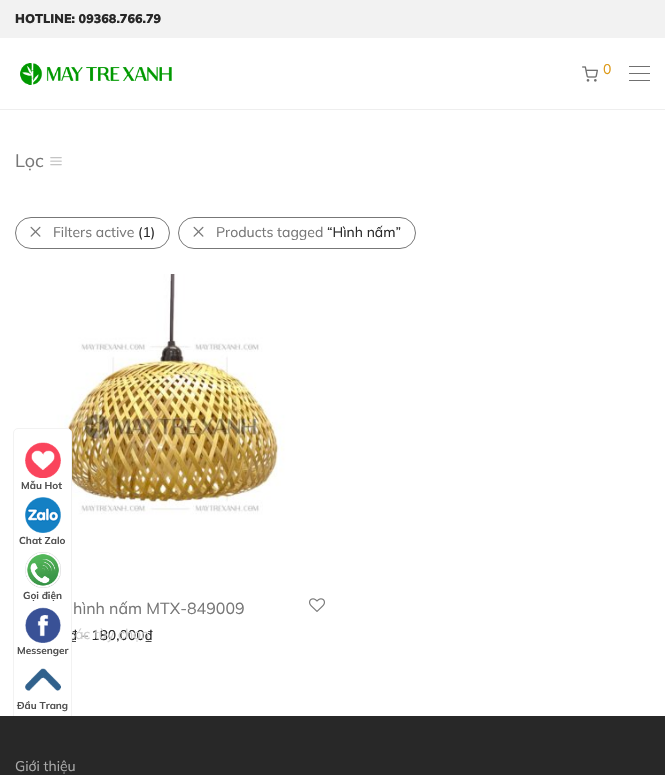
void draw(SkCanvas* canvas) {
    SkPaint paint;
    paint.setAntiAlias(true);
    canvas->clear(0xFFFFFFFF);
    paint.setColor(0xFFF2F2F2);
    canvas->drawRect(SkRect::MakeXYWH(0, 0, 665, 38), paint);
    SkFont font1(fontMgr->matchFamilyStyle("Mulish", SkFontStyle(900, SkFontStyle::kNormal_Width, SkFontStyle::kUpright_Slant)), 12.6f);
    font1.setSubpixel(true);
    paint.setColor(0xFF282828);
    canvas->drawString("HOTLINE: 09368.766.79", 15, 23, font1, paint);
    paint.setColor(0xFFEEEEEE);
    canvas->drawRect(SkRect::MakeXYWH(0, 109, 665, 1), paint);
    canvas->drawImageRect(SkImages::DeferredFromEncodedData(SkData::MakeFromFileName("img1.png")), SkRect::MakeXYWH(20, 63, 152, 22), SkSamplingOptions());
    canvas->drawImageRect(SkImages::DeferredFromEncodedData(SkData::MakeFromFileName("img2.png")), SkRect::MakeXYWH(582, 66, 16, 16), SkSamplingOptions());
    SkFont font2(fontMgr->matchFamilyStyle("Mulish", SkFontStyle::Normal()), 14);
    font2.setSubpixel(true);
    paint.setColor(0xFFDC9814);
    canvas->drawString("0", 603, 74, font2, paint);
    paint.setColor(0xFF707070);
    canvas->drawRect(SkRect::MakeXYWH(629, 66, 21, 1), paint);
    canvas->drawRect(SkRect::MakeXYWH(629, 73, 21, 1), paint);
    canvas->drawRect(SkRect::MakeXYWH(629, 80, 21, 1), paint);
    SkFont font3(fontMgr->matchFamilyStyle("Mulish", SkFontStyle::Normal()), 18);
    font3.setSubpixel(true);
    paint.setColor(0xFF777777);
    canvas->drawString("Lọc", 15, 167, font3, paint);
    canvas->drawImageRect(SkImages::DeferredFromEncodedData(SkData::MakeFromFileName("img3.png")), SkRect::MakeXYWH(50, 157, 12, 9), SkSamplingOptions());
    paint.setStyle(SkPaint::kStroke_Style);
    paint.setStrokeWidth(1);
    canvas->drawRoundRect(SkRect::MakeXYWH(15.5f, 217.5f, 154, 31), 15.5f, 15.5f, paint);
    canvas->drawImageRect(SkImages::DeferredFromEncodedData(SkData::MakeFromFileName("img4.png")), SkRect::MakeXYWH(30, 226, 11, 11), SkSamplingOptions());
    paint.setStyle(SkPaint::kFill_Style);
    canvas->drawString("Filters active", 53, 237, font2, paint);
    paint.setColor(0xFF282828);
    canvas->drawString("(1)", 138, 237, font2, paint);
    paint.setStyle(SkPaint::kStroke_Style);
    paint.setColor(0xFF777777);
    canvas->drawRoundRect(SkRect::MakeXYWH(178.5f, 217.5f, 237, 31), 15.5f, 15.5f, paint);
    canvas->drawImageRect(SkImages::DeferredFromEncodedData(SkData::MakeFromFileName("img4.png")), SkRect::MakeXYWH(193, 226, 11, 11), SkSamplingOptions());
    paint.setStyle(SkPaint::kFill_Style);
    canvas->drawString("Products tagged", 216, 237, font2, paint);
    paint.setColor(0xFF282828);
    canvas->drawString("“Hình nấm”", 327, 237, font2, paint);
    canvas->drawImageRect(SkImages::DeferredFromEncodedData(SkData::MakeFromFileName("img5.png")), SkRect::MakeXYWH(15, 274, 310, 309), SkSamplingOptions());
    SkFont font4(fontMgr->matchFamilyStyle("Mulish", SkFontStyle::Normal()), 16);
    font4.setSubpixel(true);
    paint.setColor(0xFF777777);
    canvas->drawString("hình nấm MTX-849009", 73, 614, font4, paint);
    paint.setColor(0xFF282828);
    canvas->drawString("₫", 69, 640, font2, paint);
    paint.setColor(0xFF777777);
    canvas->drawString("–", 81, 640, font2, paint);
    paint.setColor(0xFF282828);
    canvas->drawString("180,000₫", 91, 640, font2, paint);
    canvas->drawImageRect(SkImages::DeferredFromEncodedData(SkData::MakeFromFileName("img6.png")), SkRect::MakeXYWH(309, 598, 16, 14), SkSamplingOptions());
    paint.setColor(0xFFCDCDCD);
    canvas->drawString("các tùy chọn", 68, 639, font2, paint);
    paint.setColor(0xFFFFFFFF);
    canvas->drawRoundRect(SkRect::MakeXYWH(13.5f, 428.5f, 58, 296), 4.5f, 4.5f, paint);
    paint.setStyle(SkPaint::kStroke_Style);
    paint.setColor(0xFFF2F2F2);
    canvas->drawRoundRect(SkRect::MakeXYWH(13.5f, 428.5f, 58, 296), 4.5f, 4.5f, paint);
    canvas->drawImageRect(SkImages::DeferredFromEncodedData(SkData::MakeFromFileName("img7.png")), SkRect::MakeXYWH(25, 442, 36, 36), SkSamplingOptions());
    SkFont font5(fontMgr->matchFamilyStyle("Mulish", SkFontStyle::Bold()), 10);
    font5.setSubpixel(true);
    paint.setStyle(SkPaint::kFill_Style);
    paint.setColor(0xFF515151);
    canvas->drawString("Mẫu Hot", 21, 489, font5, paint);
    canvas->drawImageRect(SkImages::DeferredFromEncodedData(SkData::MakeFromFileName("img8.png")), SkRect::MakeXYWH(25, 497, 36, 36), SkSamplingOptions());
    canvas->drawString("Chat Zalo", 19, 544, font5, paint);
    canvas->drawImageRect(SkImages::DeferredFromEncodedData(SkData::MakeFromFileName("img9.png")), SkRect::MakeXYWH(25, 552, 36, 36), SkSamplingOptions());
    canvas->drawString("Gọi điện", 23, 599, font5, paint);
    canvas->drawImageRect(SkImages::DeferredFromEncodedData(SkData::MakeFromFileName("img10.png")), SkRect::MakeXYWH(25, 607, 36, 36), SkSamplingOptions());
    canvas->drawString("Messenger", 17, 654, font5, paint);
    canvas->drawImageRect(SkImages::DeferredFromEncodedData(SkData::MakeFromFileName("img11.png")), SkRect::MakeXYWH(25, 668, 36, 23), SkSamplingOptions());
    canvas->drawString("Đầu Trang", 17, 709, font5, paint);
    paint.setColor(0xFF282828);
    canvas->drawRect(SkRect::MakeXYWH(0, 716, 665, 59), paint);
    paint.setColor(0xFFAAAAAA);
    canvas->drawString("Giới thiệu", 15, 771, font2, paint);
}
